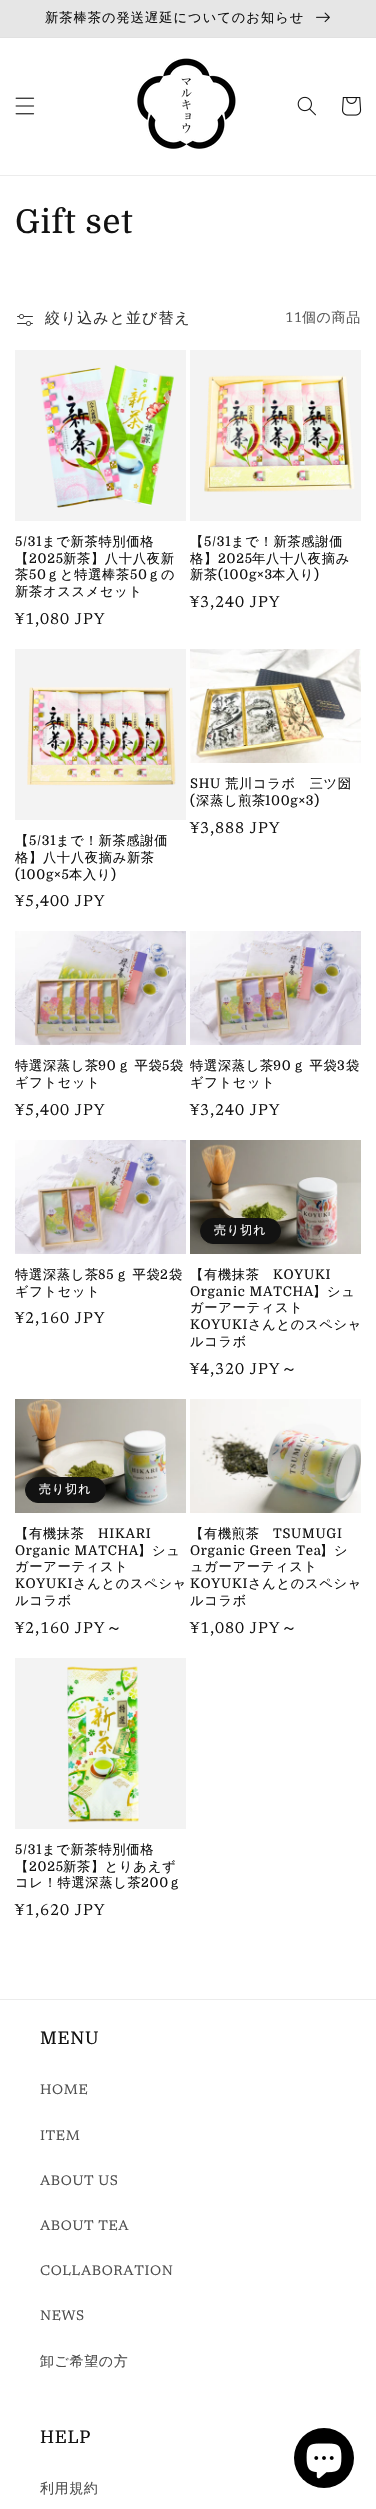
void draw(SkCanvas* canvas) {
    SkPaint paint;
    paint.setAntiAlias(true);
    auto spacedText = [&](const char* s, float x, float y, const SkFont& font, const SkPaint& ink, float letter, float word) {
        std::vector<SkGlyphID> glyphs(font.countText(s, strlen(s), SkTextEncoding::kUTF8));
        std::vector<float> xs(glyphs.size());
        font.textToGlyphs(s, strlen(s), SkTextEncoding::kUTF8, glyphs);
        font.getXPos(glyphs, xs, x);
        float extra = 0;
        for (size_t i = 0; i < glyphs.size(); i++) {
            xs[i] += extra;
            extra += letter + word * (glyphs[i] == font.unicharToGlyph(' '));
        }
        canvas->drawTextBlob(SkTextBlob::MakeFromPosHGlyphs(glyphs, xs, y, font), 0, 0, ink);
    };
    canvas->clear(0xFFFFFFFF);
    paint.setColor(0xFFE1E1E1);
    canvas->drawRect(SkRect::MakeXYWH(0, 37, 376, 1), paint);
    paint.setColor(0xFFE6E6E6);
    canvas->drawRect(SkRect::MakeXYWH(0, 0, 376, 37), paint);
    SkFont font1(fontMgr->matchFamilyStyle("WenQuanYi Zen Hei", SkFontStyle(500, SkFontStyle::kNormal_Width, SkFontStyle::kUpright_Slant)), 13.25f);
    font1.setSubpixel(true);
    paint.setColor(0xFF121212);
    spacedText("新茶棒茶の発送遅延についてのお知らせ", 45, 22, font1, paint, 1, 0);
    canvas->drawImageRect(SkImages::DeferredFromEncodedData(SkData::MakeFromFileName("img1.png")), SkRect::MakeXYWH(316, 12, 14, 11), SkSamplingOptions());
    paint.setColor(0xFFECECEC);
    canvas->drawRect(SkRect::MakeXYWH(0, 175, 376, 1), paint);
    canvas->drawImageRect(SkImages::DeferredFromEncodedData(SkData::MakeFromFileName("img2.png")), SkRect::MakeXYWH(15, 97, 20, 18), SkSamplingOptions());
    canvas->drawImageRect(SkImages::DeferredFromEncodedData(SkData::MakeFromFileName("img3.png")), SkRect::MakeXYWH(137, 58, 99, 91), SkSamplingOptions());
    canvas->drawImageRect(SkImages::DeferredFromEncodedData(SkData::MakeFromFileName("img4.png")), SkRect::MakeXYWH(297, 96, 19, 20), SkSamplingOptions());
    canvas->drawImageRect(SkImages::DeferredFromEncodedData(SkData::MakeFromFileName("img5.png")), SkRect::MakeXYWH(342, 97, 20, 19), SkSamplingOptions());
    SkFont font2(fontMgr->matchFamilyStyle("Domine", SkFontStyle::Normal()), 33);
    font2.setSubpixel(true);
    paint.setColor(0xFF121212);
    spacedText("Gift set", 15, 233, font2, paint, 0.7f, 0);
    canvas->drawImageRect(SkImages::DeferredFromEncodedData(SkData::MakeFromFileName("img6.png")), SkRect::MakeXYWH(17, 314, 16, 12), SkSamplingOptions());
    SkFont font3(fontMgr->matchFamilyStyle("WenQuanYi Zen Hei", SkFontStyle(500, SkFontStyle::kNormal_Width, SkFontStyle::kUpright_Slant)), 15);
    font3.setSubpixel(true);
    paint.setColor(0xFF363636);
    spacedText("絞り込みと並び替え", 45, 323, font3, paint, 1, 0);
    SkFont font4(fontMgr->matchFamilyStyle("Newsreader", SkFontStyle::Normal()), 14);
    font4.setSubpixel(true);
    paint.setColor(0xFF595959);
    spacedText("11", 285, 322, font4, paint, 0.6f, 0);
    SkFont font5(fontMgr->matchFamilyStyle("WenQuanYi Zen Hei", SkFontStyle(500, SkFontStyle::kNormal_Width, SkFontStyle::kUpright_Slant)), 14);
    font5.setSubpixel(true);
    spacedText("個の商品", 302, 322, font5, paint, 0.6f, 0);
    paint.setColor(0xFFF3F3F3);
    canvas->drawRect(SkRect::MakeXYWH(15, 350, 171, 171), paint);
    canvas->drawImageRect(SkImages::DeferredFromEncodedData(SkData::MakeFromFileName("img7.png")), SkRect::MakeXYWH(40, 364, 134, 144), SkSamplingOptions());
    SkFont font6(fontMgr->matchFamilyStyle("Domine", SkFontStyle::Normal()), 13.25f);
    font6.setSubpixel(true);
    paint.setColor(0xFF121212);
    spacedText("5/31", 15, 546, font6, paint, 0.7f, 0);
    spacedText("まで新茶特別価格", 42, 546, font1, paint, 0.7f, 0);
    spacedText("【", 15, 563, font1, paint, 0.7f, 0);
    spacedText("2025", 29, 563, font6, paint, 0.7f, 0);
    spacedText("新茶】八十八夜新", 63, 563, font1, paint, 0.7f, 0);
    spacedText("茶", 15, 579, font1, paint, 0.7f, 0);
    spacedText("50", 29, 579, font6, paint, 0.7f, 0);
    spacedText("ｇと特選棒茶", 46, 579, font1, paint, 0.7f, 0);
    spacedText("50", 130, 579, font6, paint, 0.7f, 0);
    spacedText("ｇの", 147, 579, font1, paint, 0.7f, 0);
    spacedText("新茶オススメセット", 15, 596, font1, paint, 0.7f, 0);
    SkFont font7(fontMgr->matchFamilyStyle("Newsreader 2", SkFontStyle::Normal()), 16);
    font7.setSubpixel(true);
    spacedText("¥1,080 JPY", 15, 624, font7, paint, 1, 0);
    paint.setColor(0xFFF3F3F3);
    canvas->drawRect(SkRect::MakeXYWH(190, 350, 171, 171), paint);
    canvas->drawImageRect(SkImages::DeferredFromEncodedData(SkData::MakeFromFileName("img8.png")), SkRect::MakeXYWH(204, 375, 151, 117), SkSamplingOptions());
    paint.setColor(0xFF121212);
    spacedText("【", 190, 546, font1, paint, 0.7f, 0);
    spacedText("5/31", 204, 546, font6, paint, 0.7f, 0);
    spacedText("まで！新茶感謝価", 231, 546, font1, paint, 0.7f, 0);
    spacedText("格】", 190, 563, font1, paint, 0.7f, 0);
    spacedText("2025", 218, 563, font6, paint, 0.7f, 0);
    spacedText("年八十八夜摘み", 252, 563, font1, paint, 0.7f, 0);
    spacedText("新茶", 190, 579, font1, paint, 0.7f, 0);
    spacedText("(100g×3", 218, 579, font6, paint, 0.7f, 0);
    spacedText("本入り", 272, 579, font1, paint, 0.7f, 0);
    spacedText(")", 314, 579, font6, paint, 0.7f, 0);
    spacedText("¥3,240 JPY", 190, 607, font7, paint, 1, 0);
    canvas->drawImageRect(SkImages::DeferredFromEncodedData(SkData::MakeFromFileName("img9.png")), SkRect::MakeXYWH(190, 649, 171, 114), SkSamplingOptions());
    spacedText("SHU", 190, 788, font6, paint, 0.7f, 0);
    spacedText("荒川コラボ　三ツ圀", 225, 788, font1, paint, 0.7f, 0);
    spacedText("(", 190, 805, font6, paint, 0.7f, 0);
    spacedText("深蒸し煎茶", 196, 805, font1, paint, 0.7f, 0);
    spacedText("100g×3)", 265, 805, font6, paint, 0.7f, 0);
    spacedText("¥3,888 JPY", 190, 833, font7, paint, 1, 0);
    paint.setColor(0xFFF3F3F3);
    canvas->drawRect(SkRect::MakeXYWH(15, 649, 171, 171), paint);
    canvas->drawImageRect(SkImages::DeferredFromEncodedData(SkData::MakeFromFileName("img10.png")), SkRect::MakeXYWH(27, 687, 149, 99), SkSamplingOptions());
    paint.setColor(0xFF121212);
    spacedText("【", 15, 845, font1, paint, 0.7f, 0);
    spacedText("5/31", 29, 845, font6, paint, 0.7f, 0);
    spacedText("まで！新茶感謝価", 56, 845, font1, paint, 0.7f, 0);
    spacedText("格】八十八夜摘み新茶", 15, 862, font1, paint, 0.7f, 0);
    spacedText("(100g×5", 15, 879, font6, paint, 0.7f, 0);
    spacedText("本入り", 69, 879, font1, paint, 0.7f, 0);
    spacedText(")", 111, 879, font6, paint, 0.7f, 0);
    spacedText("¥5,400 JPY", 15, 906, font7, paint, 1, 0);
    canvas->drawImageRect(SkImages::DeferredFromEncodedData(SkData::MakeFromFileName("img11.png")), SkRect::MakeXYWH(15, 931, 171, 114), SkSamplingOptions());
    spacedText("特選深蒸し茶", 15, 1070, font1, paint, 0.7f, 0);
    spacedText("90", 98, 1070, font6, paint, 0.7f, 0);
    spacedText("ｇ 平袋", 117, 1070, font1, paint, 0.7f, -1);
    spacedText("5", 162, 1070, font6, paint, 0.7f, 0);
    spacedText("袋", 170, 1070, font1, paint, 0.7f, 0);
    spacedText("ギフトセット", 15, 1087, font1, paint, 0.7f, 0);
    spacedText("¥5,400 JPY", 15, 1115, font7, paint, 1, 0);
    canvas->drawImageRect(SkImages::DeferredFromEncodedData(SkData::MakeFromFileName("img12.png")), SkRect::MakeXYWH(190, 931, 171, 114), SkSamplingOptions());
    spacedText("特選深蒸し茶", 190, 1070, font1, paint, 0.7f, 0);
    spacedText("90", 273, 1070, font6, paint, 0.7f, 0);
    spacedText("ｇ 平袋", 292, 1070, font1, paint, 0.7f, -1);
    spacedText("3", 337, 1070, font6, paint, 0.7f, 0);
    spacedText("袋", 346, 1070, font1, paint, 0.7f, 0);
    spacedText("ギフトセット", 190, 1087, font1, paint, 0.7f, 0);
    spacedText("¥3,240 JPY", 190, 1115, font7, paint, 1, 0);
    canvas->drawImageRect(SkImages::DeferredFromEncodedData(SkData::MakeFromFileName("img13.png")), SkRect::MakeXYWH(15, 1140, 171, 114), SkSamplingOptions());
    spacedText("特選深蒸し茶", 15, 1279, font1, paint, 0.7f, 0);
    spacedText("85", 98, 1279, font6, paint, 0.7f, 0);
    spacedText("ｇ 平袋", 115, 1279, font1, paint, 0.7f, -1);
    spacedText("2", 160, 1279, font6, paint, 0.7f, 0);
    spacedText("袋", 169, 1279, font1, paint, 0.7f, 0);
    spacedText("ギフトセット", 15, 1296, font1, paint, 0.7f, 0);
    spacedText("¥2,160 JPY", 15, 1323, font7, paint, 1, 0);
    canvas->drawImageRect(SkImages::DeferredFromEncodedData(SkData::MakeFromFileName("img14.png")), SkRect::MakeXYWH(190, 1140, 171, 114), SkSamplingOptions());
    canvas->drawRoundRect(SkRect::MakeXYWH(200.5f, 1218.5f, 80, 25), 12.5f, 12.5f, paint);
    paint.setStyle(SkPaint::kStroke_Style);
    paint.setStrokeWidth(1);
    canvas->drawRoundRect(SkRect::MakeXYWH(200.5f, 1218.5f, 80, 25), 12.5f, 12.5f, paint);
    SkFont font8(fontMgr->matchFamilyStyle("WenQuanYi Zen Hei", SkFontStyle(500, SkFontStyle::kNormal_Width, SkFontStyle::kUpright_Slant)), 12);
    font8.setSubpixel(true);
    paint.setStyle(SkPaint::kFill_Style);
    paint.setColor(0xFFFFFFFF);
    spacedText("売り切れ", 214, 1234, font8, paint, 1, 0);
    paint.setColor(0xFF121212);
    spacedText("【有機抹茶", 190, 1279, font1, paint, 0.7f, 0);
    spacedText("KOYUKI", 273, 1279, font6, paint, 0.7f, 0);
    spacedText("Organic MATCHA", 190, 1296, font6, paint, 0.7f, 0);
    spacedText("】シュ", 313, 1296, font1, paint, 0.7f, 0);
    spacedText("ガーアーティスト", 190, 1312, font1, paint, 0.7f, 0);
    spacedText("KOYUKI", 190, 1329, font6, paint, 0.7f, 0);
    spacedText("さんとのスペシャ", 248, 1329, font1, paint, 0.7f, 0);
    spacedText("ルコラボ", 190, 1346, font1, paint, 0.7f, 0);
    spacedText("¥4,320 JPY", 190, 1374, font7, paint, 1, 0);
    SkFont font9(fontMgr->matchFamilyStyle("WenQuanYi Zen Hei", SkFontStyle(500, SkFontStyle::kNormal_Width, SkFontStyle::kUpright_Slant)), 16);
    font9.setSubpixel(true);
    spacedText("～", 281, 1374, font9, paint, 1, 0);
    canvas->drawImageRect(SkImages::DeferredFromEncodedData(SkData::MakeFromFileName("img15.png")), SkRect::MakeXYWH(15, 1399, 171, 114), SkSamplingOptions());
    canvas->drawRoundRect(SkRect::MakeXYWH(25.5f, 1477.5f, 80, 25), 12.5f, 12.5f, paint);
    paint.setStyle(SkPaint::kStroke_Style);
    canvas->drawRoundRect(SkRect::MakeXYWH(25.5f, 1477.5f, 80, 25), 12.5f, 12.5f, paint);
    paint.setStyle(SkPaint::kFill_Style);
    paint.setColor(0xFFFFFFFF);
    spacedText("売り切れ", 39, 1493, font8, paint, 1, 0);
    paint.setColor(0xFF121212);
    spacedText("【有機抹茶", 15, 1538, font1, paint, 0.7f, 0);
    spacedText("HIKARI", 98, 1538, font6, paint, 0.7f, 0);
    spacedText("Organic MATCHA", 15, 1555, font6, paint, 0.7f, 0);
    spacedText("】シュ", 138, 1555, font1, paint, 0.7f, 0);
    spacedText("ガーアーティスト", 15, 1571, font1, paint, 0.7f, 0);
    spacedText("KOYUKI", 15, 1588, font6, paint, 0.7f, 0);
    spacedText("さんとのスペシャ", 73, 1588, font1, paint, 0.7f, 0);
    spacedText("ルコラボ", 15, 1605, font1, paint, 0.7f, 0);
    spacedText("¥2,160 JPY", 15, 1633, font7, paint, 1, 0);
    spacedText("～", 106, 1633, font9, paint, 1, 0);
    canvas->drawImageRect(SkImages::DeferredFromEncodedData(SkData::MakeFromFileName("img16.png")), SkRect::MakeXYWH(190, 1399, 171, 114), SkSamplingOptions());
    spacedText("【有機煎茶", 190, 1538, font1, paint, 0.7f, 0);
    spacedText("TSUMUGI", 273, 1538, font6, paint, 0.7f, 0);
    spacedText("Organic Green Tea", 190, 1555, font6, paint, 0.7f, 0);
    spacedText("】シ", 320, 1555, font1, paint, 0.7f, 0);
    spacedText("ュガーアーティスト", 190, 1571, font1, paint, 0.7f, 0);
    spacedText("KOYUKI", 190, 1588, font6, paint, 0.7f, 0);
    spacedText("さんとのスペシャ", 248, 1588, font1, paint, 0.7f, 0);
    spacedText("ルコラボ", 190, 1605, font1, paint, 0.7f, 0);
    spacedText("¥1,080 JPY", 190, 1633, font7, paint, 1, 0);
    spacedText("～", 281, 1633, font9, paint, 1, 0);
    paint.setColor(0xFFF3F3F3);
    canvas->drawRect(SkRect::MakeXYWH(15, 1658, 171, 171), paint);
    canvas->drawImageRect(SkImages::DeferredFromEncodedData(SkData::MakeFromFileName("img17.png")), SkRect::MakeXYWH(67, 1666, 73, 157), SkSamplingOptions());
    paint.setColor(0xFF121212);
    spacedText("5/31", 15, 1854, font6, paint, 0.7f, 0);
    spacedText("まで新茶特別価格", 42, 1854, font1, paint, 0.7f, 0);
    spacedText("【", 15, 1871, font1, paint, 0.7f, 0);
    spacedText("2025", 29, 1871, font6, paint, 0.7f, 0);
    spacedText("新茶】とりあえず", 63, 1871, font1, paint, 0.7f, 0);
    spacedText("コレ！特選深蒸し茶", 15, 1887, font1, paint, 0.7f, 0);
    spacedText("200", 141, 1887, font6, paint, 0.7f, 0);
    spacedText("ｇ", 168, 1887, font1, paint, 0.7f, 0);
    spacedText("¥1,620 JPY", 15, 1915, font7, paint, 1, 0);
    paint.setColor(0xFFECECEC);
    canvas->drawRect(SkRect::MakeXYWH(0, 1999, 376, 1), paint);
    SkFont font10(fontMgr->matchFamilyStyle("Domine", SkFontStyle::Normal()), 17.5f);
    font10.setSubpixel(true);
    paint.setColor(0xFF121212);
    spacedText("MENU", 40, 2044, font10, paint, 0.7f, 0);
    paint.setColor(0xFF4D4D4D);
    spacedText("HOME", 40, 2094, font4, paint, 0.6f, 0);
    spacedText("ITEM", 40, 2140, font4, paint, 0.6f, 0);
    spacedText("ABOUT US", 40, 2185, font4, paint, 0.6f, 0);
    spacedText("ABOUT TEA", 40, 2230, font4, paint, 0.6f, 0);
    spacedText("COLLABORATION", 40, 2275, font4, paint, 0.6f, 0);
    spacedText("NEWS", 40, 2320, font4, paint, 0.6f, 0);
    spacedText("卸ご希望の方", 40, 2366, font5, paint, 0.6f, 0);
    paint.setColor(0xFF121212);
    spacedText("HELP", 40, 2443, font10, paint, 0.7f, 0);
    paint.setColor(0xFF4D4D4D);
    spacedText("利用規約", 40, 2493, font5, paint, 0.6f, 0);
    paint.setColor(0xFF000000);
    canvas->drawCircle(324, 2458, 30, paint);
    canvas->drawImageRect(SkImages::DeferredFromEncodedData(SkData::MakeFromFileName("img18.png")), SkRect::MakeXYWH(306, 2443, 36, 36), SkSamplingOptions());
}
